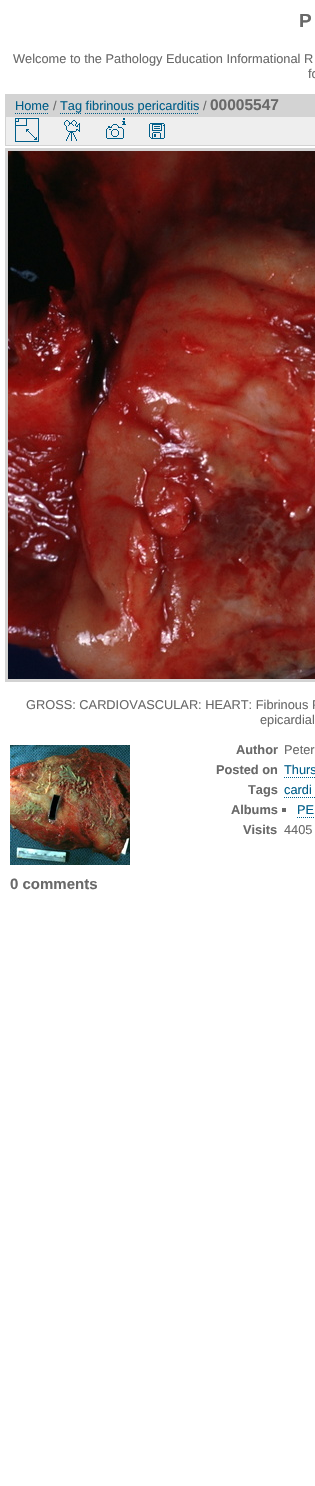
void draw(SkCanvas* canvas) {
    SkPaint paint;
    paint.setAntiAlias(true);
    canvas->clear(0xFFFFFFFF);
    SkFont font1(fontMgr->matchFamilyStyle("Liberation Sans", SkFontStyle::Bold()), 19);
    font1.setSubpixel(true);
    paint.setColor(0xFF696969);
    canvas->drawString("P", 299, 27, font1, paint);
    SkFont font2(fontMgr->matchFamilyStyle("Liberation Sans", SkFontStyle::Normal()), 12.8f);
    font2.setSubpixel(true);
    canvas->drawString("Welcome to the Pathology Education Informational R", 13, 63, font2, paint);
    canvas->drawString("fo", 308, 78, font2, paint);
    paint.setColor(0xFFD3D3D3);
    canvas->drawRect(SkRect::MakeXYWH(5, 94, 310, 22), paint);
    paint.setColor(0xFF005E89);
    canvas->drawString("Home", 15, 110, font2, paint);
    paint.setStyle(SkPaint::kStroke_Style);
    paint.setStrokeWidth(1);
    paint.setPathEffect(SkDashPathEffect::Make({{1, 1}}, 0));
    canvas->drawPath(SkPathBuilder().moveTo(15, 113.5f).lineTo(49, 113.5f).detach(), paint);
    paint.setPathEffect(nullptr);
    paint.setStyle(SkPaint::kFill_Style);
    paint.setColor(0xFF696969);
    canvas->drawString("/", 53, 110, font2, paint);
    paint.setColor(0xFF005E89);
    canvas->drawString("Tag fibrinous pericarditis", 60, 110, font2, paint);
    paint.setStyle(SkPaint::kStroke_Style);
    paint.setPathEffect(SkDashPathEffect::Make({{1, 1}}, 0));
    canvas->drawPath(SkPathBuilder().moveTo(60, 113.5f).lineTo(82, 113.5f).detach(), paint);
    paint.setPathEffect(nullptr);
    paint.setStyle(SkPaint::kFill_Style);
    paint.setColor(0xFF696969);
    canvas->drawString("/", 203, 110, font2, paint);
    SkFont font3(fontMgr->matchFamilyStyle("Liberation Sans", SkFontStyle::Bold()), 15.5f);
    font3.setSubpixel(true);
    canvas->drawString("00005547", 210, 110, font3, paint);
    paint.setStyle(SkPaint::kStroke_Style);
    paint.setColor(0xFF005E89);
    paint.setPathEffect(SkDashPathEffect::Make({{1, 1}}, 0));
    canvas->drawPath(SkPathBuilder().moveTo(85, 113.5f).lineTo(199, 113.5f).detach(), paint);
    paint.setPathEffect(nullptr);
    paint.setStyle(SkPaint::kFill_Style);
    paint.setColor(0xFFEEEEEE);
    canvas->drawRect(SkRect::MakeXYWH(5.5f, 116.5f, 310, 29), paint);
    paint.setStyle(SkPaint::kStroke_Style);
    paint.setColor(0xFFD3D3D3);
    canvas->drawRect(SkRect::MakeXYWH(5.5f, 116.5f, 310, 29), paint);
    canvas->drawImageRect(SkImages::DeferredFromEncodedData(SkData::MakeFromFileName("img1.png")), SkRect::MakeXYWH(15, 118, 24, 24), SkSamplingOptions());
    canvas->drawImageRect(SkImages::DeferredFromEncodedData(SkData::MakeFromFileName("img2.png")), SkRect::MakeXYWH(64, 120, 16, 21), SkSamplingOptions());
    canvas->drawImageRect(SkImages::DeferredFromEncodedData(SkData::MakeFromFileName("img3.png")), SkRect::MakeXYWH(106, 118, 20, 21), SkSamplingOptions());
    canvas->drawImageRect(SkImages::DeferredFromEncodedData(SkData::MakeFromFileName("img4.png")), SkRect::MakeXYWH(149, 123, 16, 16), SkSamplingOptions());
    paint.setStrokeWidth(3);
    canvas->drawRect(SkRect::MakeXYWH(6.5f, 149.5f, 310, 531), paint);
    canvas->drawImageRect(SkImages::DeferredFromEncodedData(SkData::MakeFromFileName("img5.png")), SkRect::MakeXYWH(8, 151, 307, 528), SkSamplingOptions());
    paint.setStyle(SkPaint::kFill_Style);
    paint.setColor(0xFF696969);
    canvas->drawString("GROSS: CARDIOVASCULAR: HEART: Fibrinous P", 26, 709, font2, paint);
    canvas->drawString("epicardial", 260, 724, font2, paint);
    canvas->drawImageRect(SkImages::DeferredFromEncodedData(SkData::MakeFromFileName("img6.png")), SkRect::MakeXYWH(10, 745, 120, 120), SkSamplingOptions());
    SkFont font4(fontMgr->matchFamilyStyle("Liberation Sans", SkFontStyle::Bold()), 12.8f);
    font4.setSubpixel(true);
    canvas->drawString("Author", 236, 754, font4, paint);
    canvas->drawString("Peter", 284, 754, font2, paint);
    canvas->drawString("Posted on", 216, 774, font4, paint);
    paint.setColor(0xFF005E89);
    canvas->drawString("Thurs", 284, 774, font2, paint);
    paint.setStyle(SkPaint::kStroke_Style);
    paint.setStrokeWidth(1);
    paint.setPathEffect(SkDashPathEffect::Make({{1, 1}}, 0));
    canvas->drawPath(SkPathBuilder().moveTo(284, 777.5f).lineTo(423, 777.5f).detach(), paint);
    paint.setPathEffect(nullptr);
    paint.setStyle(SkPaint::kFill_Style);
    paint.setColor(0xFF696969);
    canvas->drawString("Tags", 248, 794, font4, paint);
    paint.setColor(0xFF005E89);
    canvas->drawString("cardi", 284, 794, font2, paint);
    paint.setStyle(SkPaint::kStroke_Style);
    paint.setPathEffect(SkDashPathEffect::Make({{1, 1}}, 0));
    canvas->drawPath(SkPathBuilder().moveTo(284, 797.5f).lineTo(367, 797.5f).detach(), paint);
    paint.setPathEffect(nullptr);
    paint.setStyle(SkPaint::kFill_Style);
    paint.setColor(0xFF696969);
    canvas->drawString("Albums", 231, 814, font4, paint);
    canvas->drawRect(SkRect::MakeXYWH(282, 808, 4, 4), paint);
    paint.setColor(0xFF005E89);
    canvas->drawString("PE", 297, 814, font2, paint);
    paint.setStyle(SkPaint::kStroke_Style);
    paint.setPathEffect(SkDashPathEffect::Make({{1, 1}}, 0));
    canvas->drawPath(SkPathBuilder().moveTo(297, 817.5f).lineTo(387, 817.5f).detach(), paint);
    paint.setPathEffect(nullptr);
    paint.setStyle(SkPaint::kFill_Style);
    paint.setColor(0xFF696969);
    canvas->drawString("Visits", 243, 834, font4, paint);
    canvas->drawString("4405", 284, 834, font2, paint);
    SkFont font5(fontMgr->matchFamilyStyle("Liberation Sans", SkFontStyle::Bold()), 15);
    font5.setSubpixel(true);
    canvas->drawString("0 comments", 10, 889, font5, paint);
}
